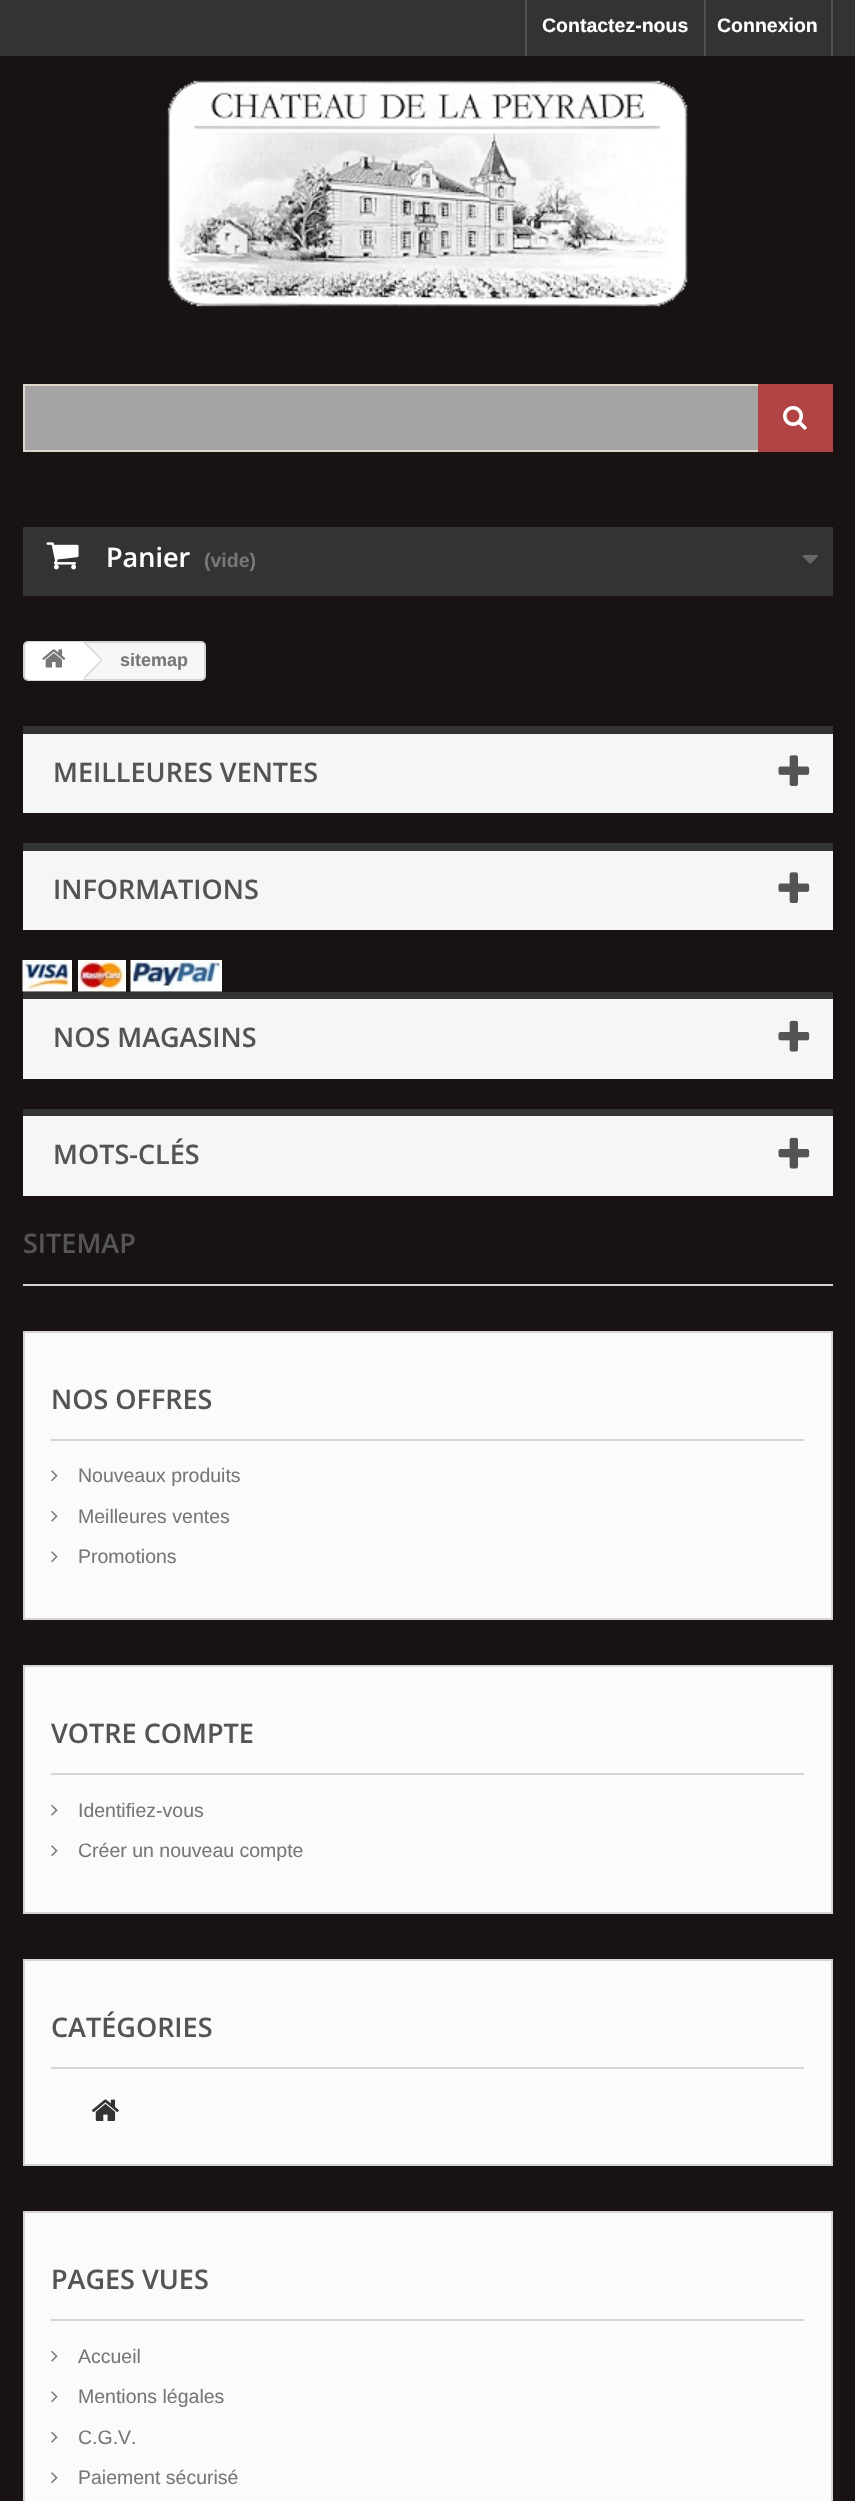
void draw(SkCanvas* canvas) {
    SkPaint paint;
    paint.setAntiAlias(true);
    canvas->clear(0xFF181212);
    paint.setColor(0xFF333333);
    canvas->drawRect(SkRect::MakeXYWH(0, 0, 855, 56), paint);
    paint.setColor(0xFF515151);
    canvas->drawRect(SkRect::MakeXYWH(525, 0, 2, 56), paint);
    SkFont font1(fontMgr->matchFamilyStyle("Liberation Sans", SkFontStyle::Bold()), 19.5f);
    font1.setSubpixel(true);
    paint.setColor(0xFFFFFFFF);
    canvas->drawString("Contactez-nous", 542, 32, font1, paint);
    paint.setColor(0xFF515151);
    canvas->drawRect(SkRect::MakeXYWH(831, 0, 2, 56), paint);
    canvas->drawRect(SkRect::MakeXYWH(704, 0, 2, 56), paint);
    paint.setColor(0xFFFFFFFF);
    canvas->drawString("Connexion", 717, 32, font1, paint);
    canvas->drawImageRect(SkImages::DeferredFromEncodedData(SkData::MakeFromFileName("img1.png")), SkRect::MakeXYWH(167, 80, 521, 227), SkSamplingOptions());
    paint.setColor(0xFFA5A3A3);
    canvas->drawRect(SkRect::MakeXYWH(25, 386, 733, 64), paint);
    paint.setStyle(SkPaint::kStroke_Style);
    paint.setStrokeWidth(2);
    paint.setColor(0xFFDFD8CA);
    canvas->drawRect(SkRect::MakeXYWH(24, 385, 808, 66), paint);
    paint.setStyle(SkPaint::kFill_Style);
    paint.setColor(0xFFB04445);
    canvas->drawRect(SkRect::MakeXYWH(758, 384, 75, 68), paint);
    canvas->drawImageRect(SkImages::DeferredFromEncodedData(SkData::MakeFromFileName("img2.png")), SkRect::MakeXYWH(783, 406, 24, 24), SkSamplingOptions());
    paint.setColor(0xFF333333);
    canvas->drawRect(SkRect::MakeXYWH(23, 527, 810, 69), paint);
    canvas->drawImageRect(SkImages::DeferredFromEncodedData(SkData::MakeFromFileName("img3.png")), SkRect::MakeXYWH(46, 542, 33, 28), SkSamplingOptions());
    SkFont font2(fontMgr->matchFamilyStyle("Open Sans", SkFontStyle(600, SkFontStyle::kNormal_Width, SkFontStyle::kUpright_Slant)), 27);
    font2.setSubpixel(true);
    paint.setColor(0xFFFFFFFF);
    canvas->drawString("Panier", 106, 567, font2, paint);
    paint.setColor(0xFF777777);
    canvas->drawString("(vide)", 204, 567, font1, paint);
    canvas->drawImageRect(SkImages::DeferredFromEncodedData(SkData::MakeFromFileName("img4.png")), SkRect::MakeXYWH(802, 555, 16, 9), SkSamplingOptions());
    paint.setColor(0xFFF6F6F6);
    canvas->drawRoundRect(SkRect::MakeXYWH(24, 642, 181, 38), 4, 4, paint);
    paint.setStyle(SkPaint::kStroke_Style);
    paint.setColor(0xFFD6D4D4);
    canvas->drawRoundRect(SkRect::MakeXYWH(24, 642, 181, 38), 4, 4, paint);
    paint.setStyle(SkPaint::kFill_Style);
    paint.setColor(0xFFFFFFFF);
    canvas->drawPath(SkPathBuilder().moveTo(31, 642).lineTo(83, 642).lineTo(83, 680).lineTo(31, 680).cubicTo(28, 680, 26, 678, 26, 675).lineTo(26, 647).cubicTo(26, 644, 28, 642, 31, 642).close().detach(), paint);
    canvas->drawImageRect(SkImages::DeferredFromEncodedData(SkData::MakeFromFileName("img5.png")), SkRect::MakeXYWH(42, 649, 24, 19), SkSamplingOptions());
    canvas->drawPath(SkPathBuilder().moveTo(86, 643).lineTo(101, 658).cubicTo(102, 659, 102, 661, 101, 662).lineTo(86, 677).cubicTo(85, 678, 83, 678, 82, 677).lineTo(67, 662).cubicTo(66, 661, 66, 659, 67, 658).lineTo(82, 643).cubicTo(83, 642, 85, 642, 86, 643).close().detach(), paint);
    paint.setColor(0xFFD6D4D4);
    canvas->drawPath(SkPathBuilder().moveTo(85, 642).lineTo(102, 659).lineTo(101, 660).lineTo(84, 643).close().moveTo(101, 660).lineTo(102, 661).lineTo(85, 678).lineTo(84, 677).close().detach(), paint);
    SkFont font3(fontMgr->matchFamilyStyle("Liberation Sans", SkFontStyle::Bold()), 18);
    font3.setSubpixel(true);
    paint.setColor(0xFF777777);
    canvas->drawString("sitemap", 120, 666, font3, paint);
    paint.setColor(0xFFF6F6F6);
    canvas->drawRect(SkRect::MakeXYWH(23, 734, 810, 79), paint);
    paint.setColor(0xFF333333);
    canvas->drawRect(SkRect::MakeXYWH(23, 726, 810, 8), paint);
    paint.setColor(0xFF555454);
    canvas->drawString("MEILLEURES VENTES", 53, 782, font2, paint);
    canvas->drawImageRect(SkImages::DeferredFromEncodedData(SkData::MakeFromFileName("img6.png")), SkRect::MakeXYWH(778, 755, 32, 31), SkSamplingOptions());
    paint.setColor(0xFFF6F6F6);
    canvas->drawRect(SkRect::MakeXYWH(23, 851, 810, 79), paint);
    paint.setColor(0xFF333333);
    canvas->drawRect(SkRect::MakeXYWH(23, 843, 810, 8), paint);
    paint.setColor(0xFF555454);
    canvas->drawString("INFORMATIONS", 53, 899, font2, paint);
    canvas->drawImageRect(SkImages::DeferredFromEncodedData(SkData::MakeFromFileName("img6.png")), SkRect::MakeXYWH(778, 872, 32, 31), SkSamplingOptions());
    canvas->drawImageRect(SkImages::DeferredFromEncodedData(SkData::MakeFromFileName("img7.png")), SkRect::MakeXYWH(22, 960, 50, 32), SkSamplingOptions());
    canvas->drawImageRect(SkImages::DeferredFromEncodedData(SkData::MakeFromFileName("img8.png")), SkRect::MakeXYWH(78, 960, 48, 32), SkSamplingOptions());
    canvas->drawImageRect(SkImages::DeferredFromEncodedData(SkData::MakeFromFileName("img9.png")), SkRect::MakeXYWH(130, 960, 92, 32), SkSamplingOptions());
    paint.setColor(0xFFF6F6F6);
    canvas->drawRect(SkRect::MakeXYWH(23, 999, 810, 80), paint);
    paint.setColor(0xFF333333);
    canvas->drawRect(SkRect::MakeXYWH(23, 992, 810, 7), paint);
    paint.setColor(0xFF555454);
    canvas->drawString("NOS MAGASINS", 53, 1047, font2, paint);
    canvas->drawImageRect(SkImages::DeferredFromEncodedData(SkData::MakeFromFileName("img10.png")), SkRect::MakeXYWH(778, 1020, 32, 32), SkSamplingOptions());
    paint.setColor(0xFFF6F6F6);
    canvas->drawRect(SkRect::MakeXYWH(23, 1116, 810, 80), paint);
    paint.setColor(0xFF333333);
    canvas->drawRect(SkRect::MakeXYWH(23, 1109, 810, 7), paint);
    paint.setColor(0xFF555454);
    canvas->drawString("MOTS-CLÉS", 53, 1164, font2, paint);
    canvas->drawImageRect(SkImages::DeferredFromEncodedData(SkData::MakeFromFileName("img10.png")), SkRect::MakeXYWH(778, 1137, 32, 32), SkSamplingOptions());
    paint.setColor(0xFFD6D4D4);
    canvas->drawRect(SkRect::MakeXYWH(23, 1284, 810, 2), paint);
    paint.setColor(0xFF555454);
    canvas->drawString("SITEMAP", 23, 1253, font2, paint);
    paint.setColor(0xFFFBFBFB);
    canvas->drawRect(SkRect::MakeXYWH(24, 1332, 808, 287), paint);
    paint.setStyle(SkPaint::kStroke_Style);
    paint.setColor(0xFFD6D4D4);
    canvas->drawRect(SkRect::MakeXYWH(24, 1332, 808, 287), paint);
    paint.setStyle(SkPaint::kFill_Style);
    canvas->drawRect(SkRect::MakeXYWH(51, 1439, 753, 2), paint);
    paint.setColor(0xFF555454);
    canvas->drawString("NOS OFFRES", 51, 1409, font2, paint);
    canvas->drawImageRect(SkImages::DeferredFromEncodedData(SkData::MakeFromFileName("img11.png")), SkRect::MakeXYWH(51, 1470, 7, 12), SkSamplingOptions());
    SkFont font4(fontMgr->matchFamilyStyle("Liberation Sans", SkFontStyle::Normal()), 19.5f);
    font4.setSubpixel(true);
    paint.setColor(0xFF777777);
    canvas->drawString("Nouveaux produits", 78, 1482, font4, paint);
    canvas->drawImageRect(SkImages::DeferredFromEncodedData(SkData::MakeFromFileName("img12.png")), SkRect::MakeXYWH(51, 1510, 7, 12), SkSamplingOptions());
    canvas->drawString("Meilleures ventes", 78, 1523, font4, paint);
    canvas->drawImageRect(SkImages::DeferredFromEncodedData(SkData::MakeFromFileName("img11.png")), SkRect::MakeXYWH(51, 1551, 7, 12), SkSamplingOptions());
    canvas->drawString("Promotions", 78, 1563, font4, paint);
    paint.setColor(0xFFFBFBFB);
    canvas->drawRect(SkRect::MakeXYWH(24, 1666, 808, 247), paint);
    paint.setStyle(SkPaint::kStroke_Style);
    paint.setColor(0xFFD6D4D4);
    canvas->drawRect(SkRect::MakeXYWH(24, 1666, 808, 247), paint);
    paint.setStyle(SkPaint::kFill_Style);
    canvas->drawRect(SkRect::MakeXYWH(51, 1773, 753, 2), paint);
    paint.setColor(0xFF555454);
    canvas->drawString("VOTRE COMPTE", 51, 1743, font2, paint);
    canvas->drawImageRect(SkImages::DeferredFromEncodedData(SkData::MakeFromFileName("img12.png")), SkRect::MakeXYWH(51, 1804, 7, 12), SkSamplingOptions());
    paint.setColor(0xFF777777);
    canvas->drawString("Identifiez-vous", 78, 1817, font4, paint);
    canvas->drawImageRect(SkImages::DeferredFromEncodedData(SkData::MakeFromFileName("img11.png")), SkRect::MakeXYWH(51, 1845, 7, 12), SkSamplingOptions());
    canvas->drawString("Créer un nouveau compte", 78, 1857, font4, paint);
    paint.setColor(0xFFFBFBFB);
    canvas->drawRect(SkRect::MakeXYWH(24, 1960, 808, 205), paint);
    paint.setStyle(SkPaint::kStroke_Style);
    paint.setColor(0xFFD6D4D4);
    canvas->drawRect(SkRect::MakeXYWH(24, 1960, 808, 205), paint);
    paint.setStyle(SkPaint::kFill_Style);
    canvas->drawRect(SkRect::MakeXYWH(51, 2067, 753, 2), paint);
    paint.setColor(0xFF555454);
    canvas->drawString("CATÉGORIES", 51, 2037, font2, paint);
    canvas->drawImageRect(SkImages::DeferredFromEncodedData(SkData::MakeFromFileName("img13.png")), SkRect::MakeXYWH(92, 2099, 27, 22), SkSamplingOptions());
    paint.setColor(0xFFFBFBFB);
    canvas->drawRect(SkRect::MakeXYWH(24, 2212, 808, 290), paint);
    paint.setStyle(SkPaint::kStroke_Style);
    paint.setColor(0xFFD6D4D4);
    canvas->drawRect(SkRect::MakeXYWH(24, 2212, 808, 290), paint);
    paint.setStyle(SkPaint::kFill_Style);
    canvas->drawRect(SkRect::MakeXYWH(51, 2319, 753, 2), paint);
    paint.setColor(0xFF555454);
    canvas->drawString("PAGES VUES", 51, 2289, font2, paint);
    canvas->drawImageRect(SkImages::DeferredFromEncodedData(SkData::MakeFromFileName("img12.png")), SkRect::MakeXYWH(51, 2350, 7, 12), SkSamplingOptions());
    paint.setColor(0xFF777777);
    canvas->drawString("Accueil", 78, 2363, font4, paint);
    canvas->drawImageRect(SkImages::DeferredFromEncodedData(SkData::MakeFromFileName("img11.png")), SkRect::MakeXYWH(51, 2391, 7, 12), SkSamplingOptions());
    canvas->drawString("Mentions légales", 78, 2403, font4, paint);
    canvas->drawImageRect(SkImages::DeferredFromEncodedData(SkData::MakeFromFileName("img12.png")), SkRect::MakeXYWH(51, 2431, 7, 12), SkSamplingOptions());
    canvas->drawString("C.G.V.", 78, 2444, font4, paint);
    canvas->drawImageRect(SkImages::DeferredFromEncodedData(SkData::MakeFromFileName("img11.png")), SkRect::MakeXYWH(51, 2472, 7, 12), SkSamplingOptions());
    canvas->drawString("Paiement sécurisé", 78, 2484, font4, paint);
}
